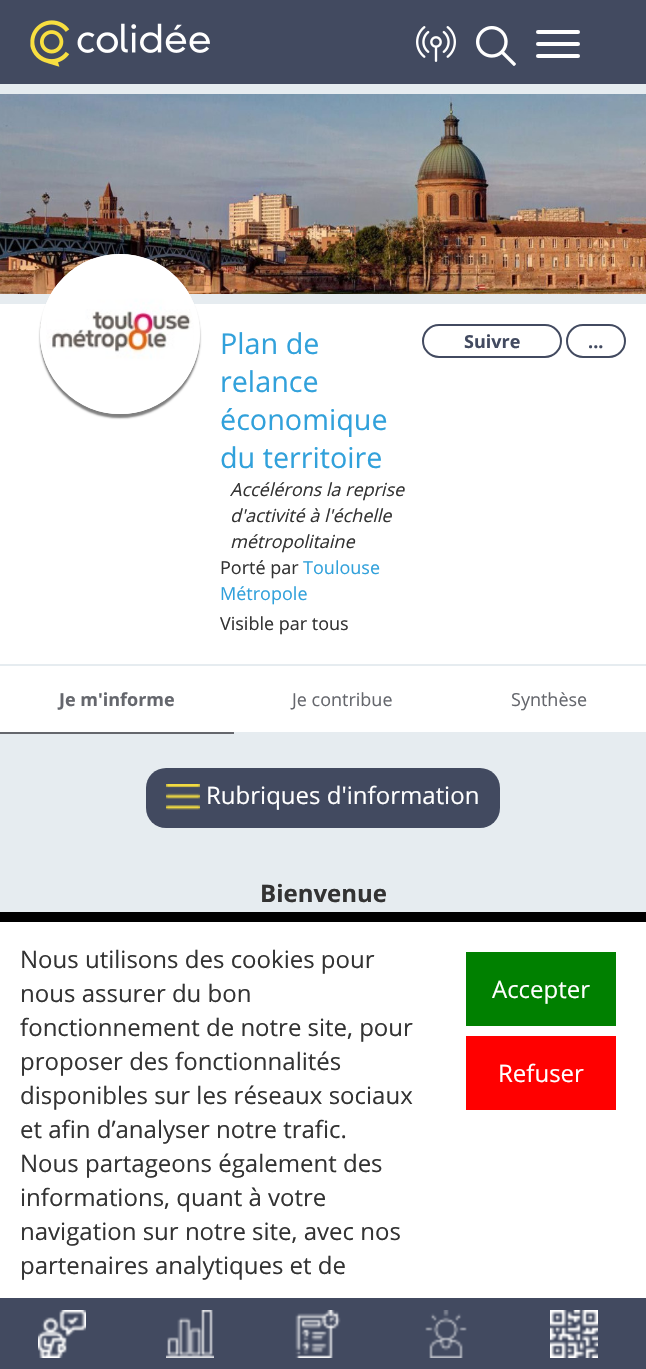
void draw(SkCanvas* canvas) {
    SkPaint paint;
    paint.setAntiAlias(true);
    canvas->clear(0xFFE6ECF0);
    paint.setColor(0xFF424A60);
    canvas->drawRect(SkRect::MakeXYWH(0, 0, 646, 84), paint);
    canvas->drawImageRect(SkImages::DeferredFromEncodedData(SkData::MakeFromFileName("img1.png")), SkRect::MakeXYWH(30, 20, 180, 47), SkSamplingOptions());
    canvas->drawImageRect(SkImages::DeferredFromEncodedData(SkData::MakeFromFileName("img2.png")), SkRect::MakeXYWH(416, 26, 40, 36), SkSamplingOptions());
    canvas->drawImageRect(SkImages::DeferredFromEncodedData(SkData::MakeFromFileName("img3.png")), SkRect::MakeXYWH(476, 26, 40, 40), SkSamplingOptions());
    paint.setColor(0xFFFFFFFF);
    canvas->drawRoundRect(SkRect::MakeXYWH(536, 30, 44, 4), 2, 2, paint);
    canvas->drawRoundRect(SkRect::MakeXYWH(536, 42, 44, 4), 2, 2, paint);
    canvas->drawRoundRect(SkRect::MakeXYWH(536, 54, 44, 4), 2, 2, paint);
    canvas->drawImageRect(SkImages::DeferredFromEncodedData(SkData::MakeFromFileName("img4.png")), SkRect::MakeXYWH(0, 94, 646, 200), SkSamplingOptions());
    canvas->drawRect(SkRect::MakeXYWH(0, 304, 646, 360), paint);
    paint.setColor(0x80000000);
    paint.setMaskFilter(SkMaskFilter::MakeBlur(kNormal_SkBlurStyle, 1));
    canvas->drawRoundRect(SkRect::MakeXYWH(40, 258, 160, 160), 80, 80, paint);
    paint.setMaskFilter(nullptr);
    canvas->drawImageRect(SkImages::DeferredFromEncodedData(SkData::MakeFromFileName("img5.png")), SkRect::MakeXYWH(40, 254, 160, 160), SkSamplingOptions());
    paint.setStyle(SkPaint::kStroke_Style);
    paint.setStrokeWidth(6);
    paint.setColor(0xFFFFFFFF);
    canvas->drawCircle(120, 334, 77, paint);
    SkFont font1(fontMgr->matchFamilyStyle("Open Sans", SkFontStyle::Normal()), 28.75f);
    font1.setSubpixel(true);
    paint.setStyle(SkPaint::kFill_Style);
    paint.setColor(0xFF31A1DB);
    canvas->drawString("Plan de", 220, 354, font1, paint);
    canvas->drawString("relance", 220, 392, font1, paint);
    canvas->drawString("économique", 220, 430, font1, paint);
    canvas->drawString("du territoire", 220, 468, font1, paint);
    SkFont font2(fontMgr->matchFamilyStyle("Open Sans", SkFontStyle::Italic()), 18);
    font2.setSubpixel(true);
    paint.setColor(0xFF333333);
    canvas->drawString("Accélérons la reprise", 230, 496, font2, paint);
    canvas->drawString("d'activité à l'échelle", 230, 522, font2, paint);
    canvas->drawString("métropolitaine", 230, 548, font2, paint);
    SkFont font3(fontMgr->matchFamilyStyle("Open Sans", SkFontStyle::Normal()), 18);
    font3.setSubpixel(true);
    canvas->drawString("Porté par", 220, 574, font3, paint);
    paint.setColor(0xFF31A1DB);
    canvas->drawString("Toulouse", 303, 574, font3, paint);
    canvas->drawString("Métropole", 220, 600, font3, paint);
    paint.setColor(0xFF333333);
    canvas->drawString("Visible par tous", 220, 630, font3, paint);
    paint.setStyle(SkPaint::kStroke_Style);
    paint.setStrokeWidth(2);
    paint.setColor(0xFF424A60);
    canvas->drawRoundRect(SkRect::MakeXYWH(423, 325, 138, 32), 16, 16, paint);
    SkFont font4(fontMgr->matchFamilyStyle("Open Sans", SkFontStyle::Bold()), 18);
    font4.setSubpixel(true);
    paint.setStyle(SkPaint::kFill_Style);
    canvas->drawString("Suivre", 464, 348, font4, paint);
    paint.setStyle(SkPaint::kStroke_Style);
    canvas->drawRoundRect(SkRect::MakeXYWH(567, 325, 58, 32), 16, 16, paint);
    paint.setStyle(SkPaint::kFill_Style);
    canvas->drawString("...", 588, 348, font4, paint);
    paint.setColor(0xFFFFFFFF);
    canvas->drawRect(SkRect::MakeXYWH(0, 666, 646, 66), paint);
    paint.setColor(0xFF65676D);
    canvas->drawRect(SkRect::MakeXYWH(0, 732, 234, 2), paint);
    canvas->drawString("Je m'informe", 59, 706, font4, paint);
    canvas->drawString("Je contribue", 292, 706, font3, paint);
    canvas->drawString("Synthèse", 511, 706, font3, paint);
    paint.setColor(0xFF424A60);
    canvas->drawRoundRect(SkRect::MakeXYWH(146, 768, 354, 60), 20, 20, paint);
    canvas->drawImageRect(SkImages::DeferredFromEncodedData(SkData::MakeFromFileName("img6.png")), SkRect::MakeXYWH(166, 784, 34, 26), SkSamplingOptions());
    SkFont font5(fontMgr->matchFamilyStyle("Open Sans", SkFontStyle::Normal()), 24);
    font5.setSubpixel(true);
    paint.setColor(0xFFFFFFFF);
    canvas->drawString("Rubriques d'information", 206, 804, font5, paint);
    SkFont font6(fontMgr->matchFamilyStyle("Open Sans", SkFontStyle::Bold()), 24);
    font6.setSubpixel(true);
    paint.setColor(0xFF333333);
    canvas->drawString("Bienvenue", 260, 902, font6, paint);
    paint.setColor(0xFFFFFFFF);
    canvas->drawRect(SkRect::MakeXYWH(0, 922, 646, 376), paint);
    paint.setColor(0xFF000000);
    canvas->drawRect(SkRect::MakeXYWH(0, 912, 646, 10), paint);
    paint.setColor(0xFF333333);
    canvas->drawString("Nous utilisons des cookies pour", 20, 968, font5, paint);
    canvas->drawString("nous assurer du bon", 20, 1002, font5, paint);
    canvas->drawString("fonctionnement de notre site, pour", 20, 1036, font5, paint);
    canvas->drawString("proposer des fonctionnalités", 20, 1070, font5, paint);
    canvas->drawString("disponibles sur les réseaux sociaux", 20, 1104, font5, paint);
    canvas->drawString("et afin d’analyser notre trafic.", 20, 1138, font5, paint);
    canvas->drawString("Nous partageons également des", 20, 1172, font5, paint);
    canvas->drawString("informations, quant à votre", 20, 1206, font5, paint);
    canvas->drawString("navigation sur notre site, avec nos", 20, 1240, font5, paint);
    canvas->drawString("partenaires analytiques et de", 20, 1274, font5, paint);
    paint.setColor(0xFF008000);
    canvas->drawRect(SkRect::MakeXYWH(466, 952, 150, 74), paint);
    paint.setColor(0xFFFFFFFF);
    canvas->drawString("Accepter", 492, 998, font5, paint);
    paint.setColor(0xFFFF0000);
    canvas->drawRect(SkRect::MakeXYWH(466, 1036, 150, 74), paint);
    paint.setColor(0xFFFFFFFF);
    canvas->drawString("Refuser", 498, 1082, font5, paint);
    paint.setColor(0xFF424A60);
    canvas->drawRect(SkRect::MakeXYWH(0, 1298, 646, 71), paint);
    canvas->drawImageRect(SkImages::DeferredFromEncodedData(SkData::MakeFromFileName("img7.png")), SkRect::MakeXYWH(38, 1310, 48, 48), SkSamplingOptions());
    canvas->drawImageRect(SkImages::DeferredFromEncodedData(SkData::MakeFromFileName("img8.png")), SkRect::MakeXYWH(166, 1310, 48, 48), SkSamplingOptions());
    canvas->drawImageRect(SkImages::DeferredFromEncodedData(SkData::MakeFromFileName("img9.png")), SkRect::MakeXYWH(295, 1310, 46, 48), SkSamplingOptions());
    canvas->drawImageRect(SkImages::DeferredFromEncodedData(SkData::MakeFromFileName("img10.png")), SkRect::MakeXYWH(425, 1310, 42, 48), SkSamplingOptions());
    canvas->drawImageRect(SkImages::DeferredFromEncodedData(SkData::MakeFromFileName("img11.png")), SkRect::MakeXYWH(550, 1310, 48, 48), SkSamplingOptions());
}
